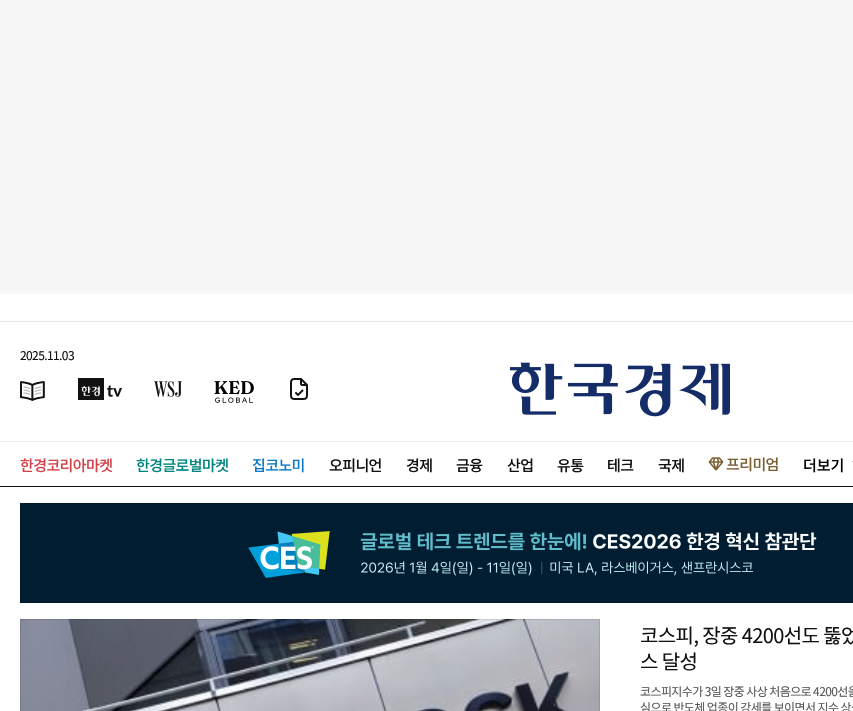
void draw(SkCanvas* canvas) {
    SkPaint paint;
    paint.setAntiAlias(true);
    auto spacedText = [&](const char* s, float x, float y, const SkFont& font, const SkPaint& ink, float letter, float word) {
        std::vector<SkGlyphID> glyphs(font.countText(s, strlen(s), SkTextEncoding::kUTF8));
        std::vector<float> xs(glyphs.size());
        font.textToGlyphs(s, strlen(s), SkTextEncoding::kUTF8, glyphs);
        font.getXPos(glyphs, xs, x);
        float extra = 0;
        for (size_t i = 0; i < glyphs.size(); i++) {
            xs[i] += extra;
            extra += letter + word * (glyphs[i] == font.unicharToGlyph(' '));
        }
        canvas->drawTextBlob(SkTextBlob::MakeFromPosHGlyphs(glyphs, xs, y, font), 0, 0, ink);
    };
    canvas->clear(0xFFFFFFFF);
    paint.setColor(0xFFF7F7F7);
    canvas->drawRect(SkRect::MakeXYWH(0, 0, 853, 294), paint);
    paint.setColor(0xFFE2E2E2);
    canvas->drawRect(SkRect::MakeXYWH(0, 321, 853, 1), paint);
    paint.setColor(0xFF121212);
    canvas->drawRect(SkRect::MakeXYWH(0, 486, 853, 1), paint);
    SkFont font1(fontMgr->matchFamilyStyle("Noto Sans KR", SkFontStyle::Normal()), 12);
    font1.setSubpixel(true);
    spacedText("2025.11.03", 20, 360, font1, paint, -0.6f, 0);
    canvas->drawImageRect(SkImages::DeferredFromEncodedData(SkData::MakeFromFileName("img1.png")), SkRect::MakeXYWH(20, 381, 25, 20), SkSamplingOptions());
    canvas->drawImageRect(SkImages::DeferredFromEncodedData(SkData::MakeFromFileName("img2.png")), SkRect::MakeXYWH(78, 378, 44, 22), SkSamplingOptions());
    canvas->drawImageRect(SkImages::DeferredFromEncodedData(SkData::MakeFromFileName("img3.png")), SkRect::MakeXYWH(154, 381, 28, 16), SkSamplingOptions());
    canvas->drawImageRect(SkImages::DeferredFromEncodedData(SkData::MakeFromFileName("img4.png")), SkRect::MakeXYWH(214, 380, 40, 23), SkSamplingOptions());
    canvas->drawImageRect(SkImages::DeferredFromEncodedData(SkData::MakeFromFileName("img5.png")), SkRect::MakeXYWH(290, 378, 18, 22), SkSamplingOptions());
    canvas->drawImageRect(SkImages::DeferredFromEncodedData(SkData::MakeFromFileName("img6.png")), SkRect::MakeXYWH(510, 362, 220, 55), SkSamplingOptions());
    paint.setColor(0xFFEEEEEE);
    canvas->drawRect(SkRect::MakeXYWH(0, 441, 853, 1), paint);
    SkFont font2(fontMgr->matchFamilyStyle("Noto Sans KR", SkFontStyle(500, SkFontStyle::kNormal_Width, SkFontStyle::kUpright_Slant)), 15);
    font2.setSubpixel(true);
    paint.setColor(0xFFD54049);
    spacedText("한경코리아마켓", 20, 471, font2, paint, -0.6f, 0);
    paint.setColor(0xFF00847F);
    spacedText("한경글로벌마켓", 136, 471, font2, paint, -0.6f, 0);
    paint.setColor(0xFF0D79C7);
    spacedText("집코노미", 252, 471, font2, paint, -0.6f, 0);
    paint.setColor(0xFF121212);
    spacedText("오피니언", 329, 471, font2, paint, -0.6f, 0);
    spacedText("경제", 406, 471, font2, paint, -0.6f, 0);
    spacedText("금융", 456, 471, font2, paint, -0.6f, 0);
    spacedText("산업", 507, 471, font2, paint, -0.6f, 0);
    spacedText("유통", 557, 471, font2, paint, -0.6f, 0);
    spacedText("테크", 607, 471, font2, paint, -0.6f, 0);
    spacedText("국제", 658, 471, font2, paint, -0.6f, 0);
    canvas->drawImageRect(SkImages::DeferredFromEncodedData(SkData::MakeFromFileName("img7.png")), SkRect::MakeXYWH(708, 457, 16, 14), SkSamplingOptions());
    paint.setColor(0xFF7B5F32);
    spacedText("프리미엄", 726, 470, font2, paint, -0.6f, 0);
    paint.setColor(0xFF000000);
    canvas->drawString("더보기", 803, 471, font2, paint);
    paint.setStyle(SkPaint::kStroke_Style);
    paint.setStrokeWidth(1);
    paint.setStrokeCap(SkPaint::kRound_Cap);
    paint.setStrokeJoin(SkPaint::kRound_Join);
    paint.setColor(0xFF121212);
    canvas->drawPath(SkPathBuilder().moveTo(853, 462).lineTo(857.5f, 466).lineTo(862, 462).detach(), paint);
    paint.setStyle(SkPaint::kFill_Style);
    paint.setColor(0xFF001D31);
    canvas->drawRect(SkRect::MakeXYWH(21, 504, 832, 98), paint);
    canvas->drawImageRect(SkImages::DeferredFromEncodedData(SkData::MakeFromFileName("img8.png")), SkRect::MakeXYWH(248, 531, 569, 47), SkSamplingOptions());
    paint.setStyle(SkPaint::kStroke_Style);
    paint.setStrokeCap(SkPaint::kButt_Cap);
    paint.setStrokeJoin(SkPaint::kMiter_Join);
    paint.setColor(0xFF001A2C);
    canvas->drawRect(SkRect::MakeXYWH(20.5f, 503.5f, 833, 99), paint);
    canvas->drawImageRect(SkImages::DeferredFromEncodedData(SkData::MakeFromFileName("img9.png")), SkRect::MakeXYWH(20, 619, 580, 92), SkSamplingOptions());
    paint.setColor(0x1A000000);
    canvas->drawRect(SkRect::MakeXYWH(20.5f, 619.5f, 579, 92), paint);
    SkFont font3(fontMgr->matchFamilyStyle("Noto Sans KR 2", SkFontStyle::Normal()), 20);
    font3.setSubpixel(true);
    paint.setStyle(SkPaint::kFill_Style);
    paint.setColor(0xFF121212);
    spacedText("코스피, 장중 4200선도 뚫었", 640, 643, font3, paint, -0.6f, 0);
    spacedText("스 달성", 640, 669, font3, paint, -0.6f, 0);
    paint.setColor(0xFF585858);
    spacedText("코스피지수가 3일 장중 사상 처음으로 4200선을", 640, 696, font1, paint, -0.6f, 0);
    spacedText("심으로 반도체 업종이 강세를 보이면서 지수 상승", 640, 712, font1, paint, -0.6f, 0);
}
